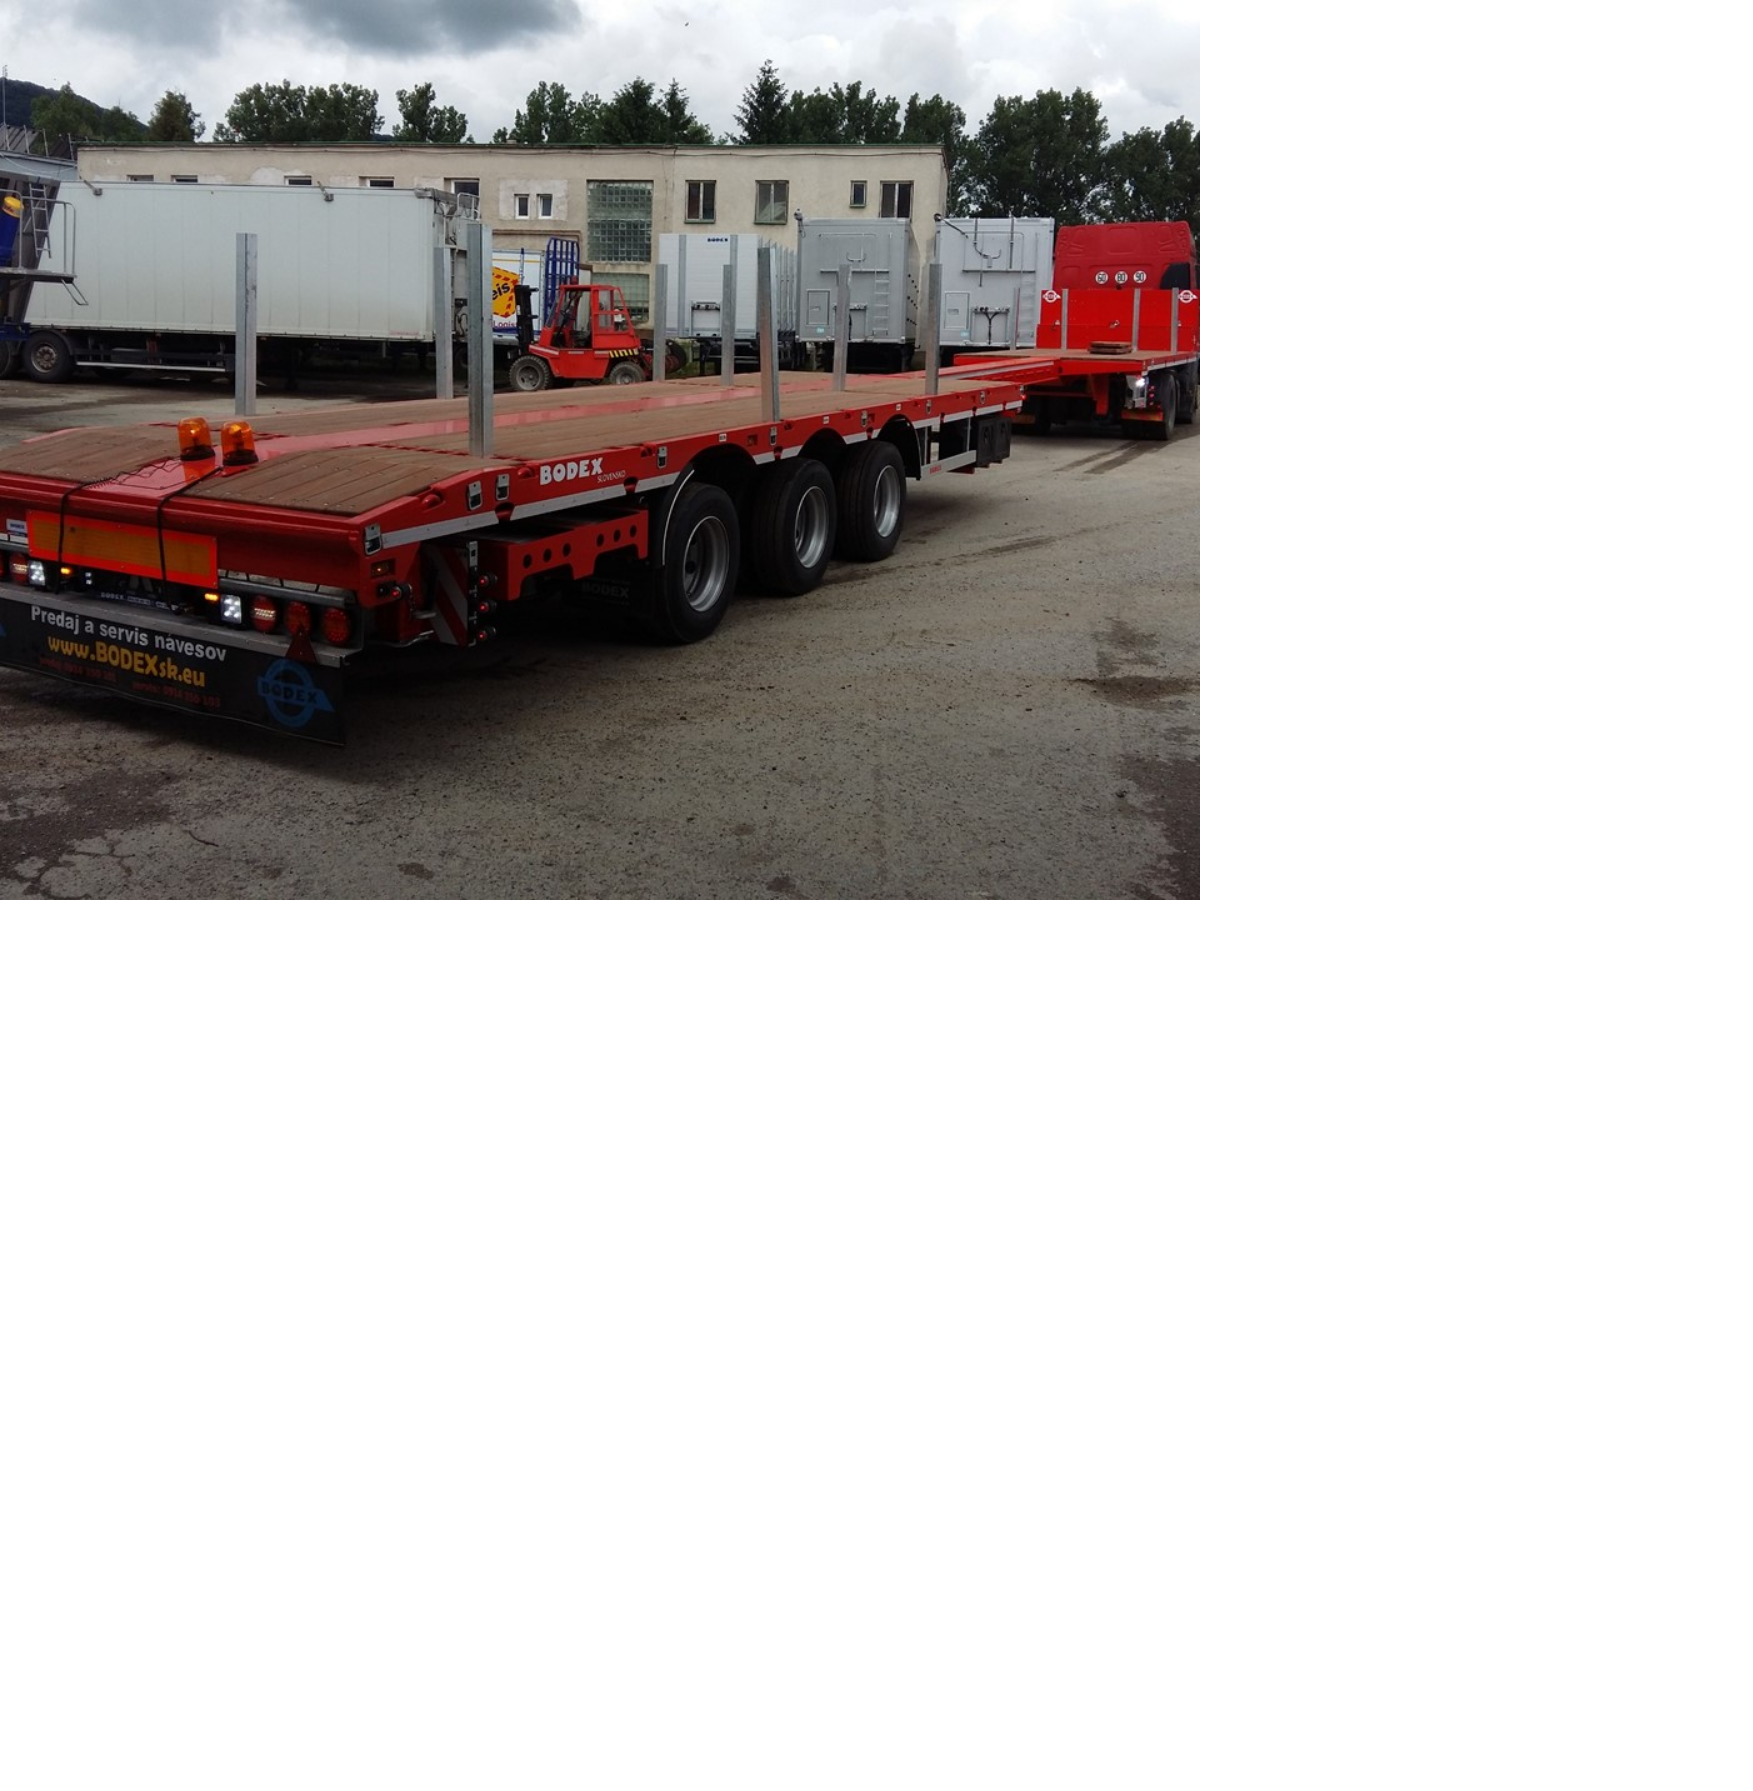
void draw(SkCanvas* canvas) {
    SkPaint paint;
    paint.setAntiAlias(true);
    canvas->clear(0xFFFFFFFF);
    canvas->drawImageRect(SkImages::DeferredFromEncodedData(SkData::MakeFromFileName("img1.png")), SkRect::MakeXYWH(0, 0, 1200, 900), SkSamplingOptions());
}
